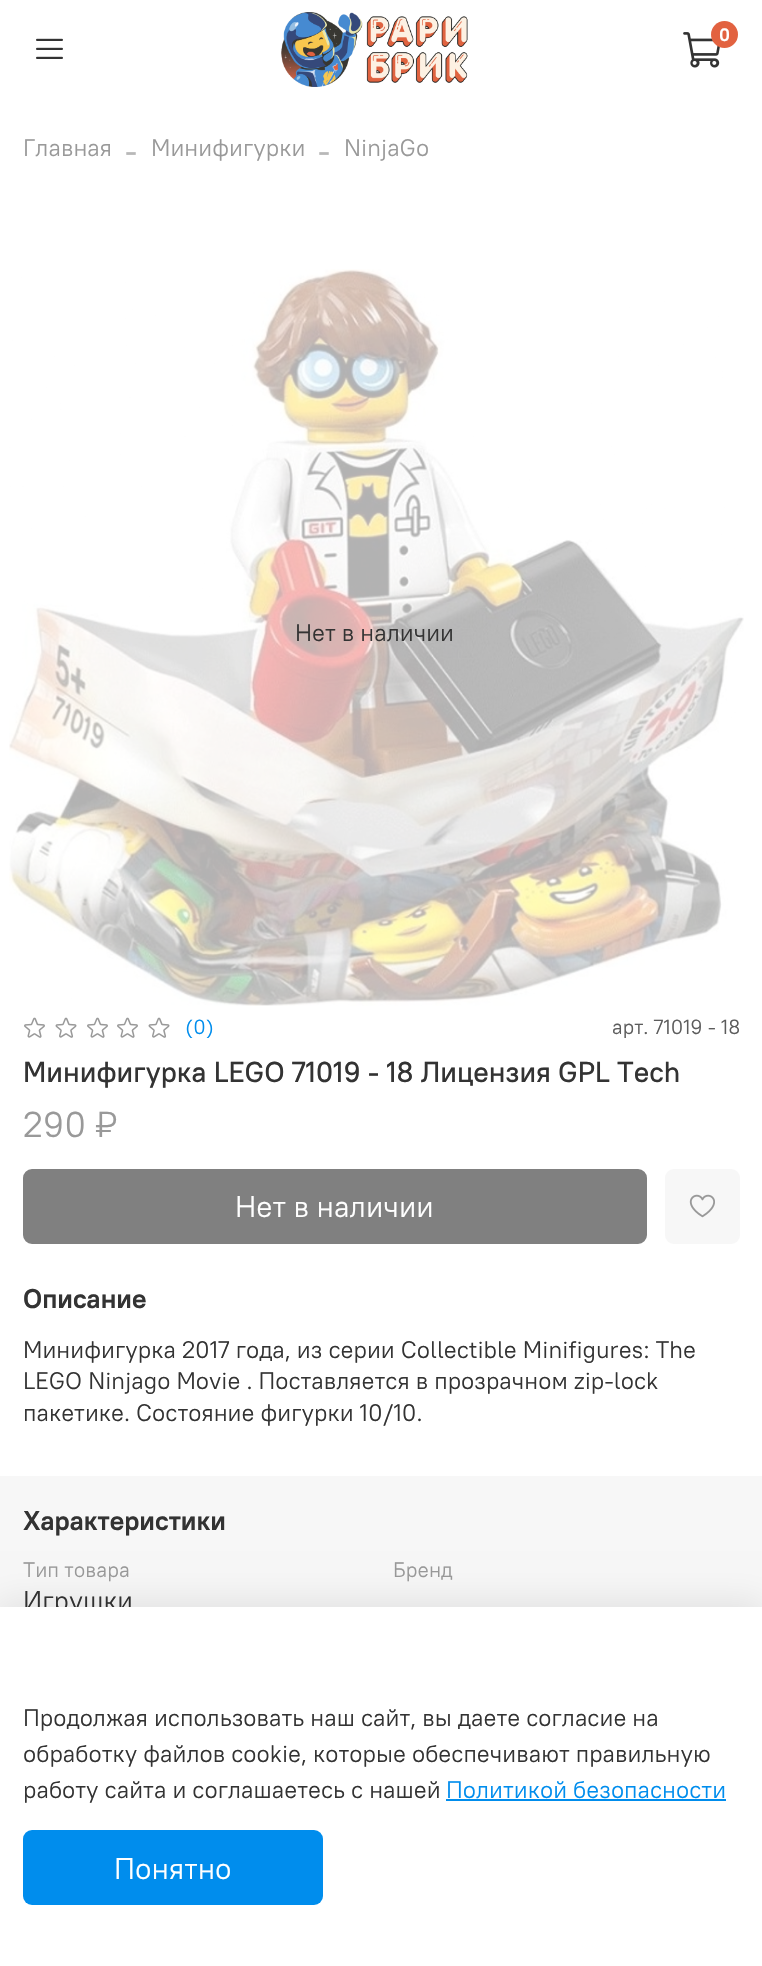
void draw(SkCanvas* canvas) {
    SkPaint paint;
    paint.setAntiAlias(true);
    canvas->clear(0xFFFFFFFF);
    canvas->drawImageRect(SkImages::DeferredFromEncodedData(SkData::MakeFromFileName("img1.png")), SkRect::MakeXYWH(281, 12, 187, 75), SkSamplingOptions());
    canvas->drawImageRect(SkImages::DeferredFromEncodedData(SkData::MakeFromFileName("img2.png")), SkRect::MakeXYWH(683, 32, 37, 36), SkSamplingOptions());
    paint.setColor(0xFFE26240);
    canvas->drawCircle(724.5f, 34.5f, 13.5f, paint);
    SkFont font1(fontMgr->matchFamilyStyle("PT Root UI", SkFontStyle::Bold()), 18);
    font1.setSubpixel(true);
    paint.setColor(0xFFFFFFFF);
    canvas->drawString("0", 719, 41, font1, paint);
    canvas->drawImageRect(SkImages::DeferredFromEncodedData(SkData::MakeFromFileName("img3.png")), SkRect::MakeXYWH(36, 38, 27, 21), SkSamplingOptions());
    SkFont font2(fontMgr->matchFamilyStyle("PT Root UI", SkFontStyle::Normal()), 24);
    font2.setSubpixel(true);
    paint.setColor(0xFF999999);
    canvas->drawString("Главная", 23, 156, font2, paint);
    SkFont font3(fontMgr->matchFamilyStyle("Liberation Serif", SkFontStyle::Normal()), 36);
    font3.setSubpixel(true);
    paint.setColor(0xFFB8B8B8);
    canvas->drawString("-", 125, 162, font3, paint);
    paint.setColor(0xFF999999);
    canvas->drawString("Минифигурки", 151, 156, font2, paint);
    paint.setColor(0xFFB8B8B8);
    canvas->drawString("-", 318, 162, font3, paint);
    paint.setColor(0xFF999999);
    canvas->drawString("NinjaGo", 344, 156, font2, paint);
    canvas->drawImageRect(SkImages::DeferredFromEncodedData(SkData::MakeFromFileName("img4.png")), SkRect::MakeXYWH(9, 269, 735, 737), SkSamplingOptions());
    paint.setColor(0xFF333333);
    canvas->drawString("Нет в наличии", 295, 641, font2, paint);
    canvas->drawImageRect(SkImages::DeferredFromEncodedData(SkData::MakeFromFileName("img5.png")), SkRect::MakeXYWH(24, 1017, 21, 21), SkSamplingOptions());
    canvas->drawImageRect(SkImages::DeferredFromEncodedData(SkData::MakeFromFileName("img6.png")), SkRect::MakeXYWH(55, 1017, 22, 21), SkSamplingOptions());
    canvas->drawImageRect(SkImages::DeferredFromEncodedData(SkData::MakeFromFileName("img5.png")), SkRect::MakeXYWH(87, 1017, 21, 21), SkSamplingOptions());
    canvas->drawImageRect(SkImages::DeferredFromEncodedData(SkData::MakeFromFileName("img5.png")), SkRect::MakeXYWH(117, 1017, 21, 21), SkSamplingOptions());
    canvas->drawImageRect(SkImages::DeferredFromEncodedData(SkData::MakeFromFileName("img6.png")), SkRect::MakeXYWH(148, 1017, 22, 21), SkSamplingOptions());
    SkFont font4(fontMgr->matchFamilyStyle("PT Root UI", SkFontStyle::Normal()), 20.5f);
    font4.setSubpixel(true);
    paint.setColor(0xFF008DED);
    canvas->drawString("(0)", 185, 1034, font4, paint);
    paint.setColor(0xFF5C5C5C);
    canvas->drawString("арт. 71019 - 18", 612, 1034, font4, paint);
    SkFont font5(fontMgr->matchFamilyStyle("PT Root UI", SkFontStyle(500, SkFontStyle::kNormal_Width, SkFontStyle::kUpright_Slant)), 28.8f);
    font5.setSubpixel(true);
    paint.setColor(0xFF333333);
    canvas->drawString("Минифигурка LEGO 71019 - 18 Лицензия GPL Tech", 23, 1082, font5, paint);
    SkFont font6(fontMgr->matchFamilyStyle("PT Root UI", SkFontStyle::Normal()), 36);
    font6.setSubpixel(true);
    paint.setColor(0xFF999999);
    canvas->drawString("290 ₽", 23, 1137, font6, paint);
    paint.setColor(0xFF808080);
    canvas->drawRoundRect(SkRect::MakeXYWH(24, 1170, 622, 73), 8, 8, paint);
    paint.setStyle(SkPaint::kStroke_Style);
    paint.setStrokeWidth(2);
    canvas->drawRoundRect(SkRect::MakeXYWH(24, 1170, 622, 73), 8, 8, paint);
    SkFont font7(fontMgr->matchFamilyStyle("PT Root UI", SkFontStyle::Normal()), 30);
    font7.setSubpixel(true);
    paint.setStyle(SkPaint::kFill_Style);
    paint.setColor(0xFFFFFFFF);
    canvas->drawString("Нет в наличии", 235, 1217, font7, paint);
    paint.setColor(0xFFF7F7F7);
    canvas->drawRoundRect(SkRect::MakeXYWH(665, 1169, 75, 75), 9, 9, paint);
    canvas->drawImageRect(SkImages::DeferredFromEncodedData(SkData::MakeFromFileName("img7.png")), SkRect::MakeXYWH(689, 1194, 26, 24), SkSamplingOptions());
    SkFont font8(fontMgr->matchFamilyStyle("PT Root UI", SkFontStyle::Bold()), 27);
    font8.setSubpixel(true);
    paint.setColor(0xFF333333);
    canvas->drawString("Описание", 23, 1308, font8, paint);
    canvas->drawString("Минифигурка 2017 года, из серии Collectible Minifigures: The", 23, 1358, font2, paint);
    canvas->drawString("LEGO Ninjago Movie . Поставляется в прозрачном zip-lock", 23, 1389, font2, paint);
    canvas->drawString("пакетике. Состояние фигурки 10/10.", 23, 1421, font2, paint);
    paint.setColor(0xFFF7F7F7);
    canvas->drawRect(SkRect::MakeXYWH(0, 1476, 762, 131), paint);
    paint.setColor(0xFF333333);
    canvas->drawString("Характеристики", 23, 1530, font8, paint);
    SkFont font9(fontMgr->matchFamilyStyle("PT Root UI", SkFontStyle::Normal()), 21);
    font9.setSubpixel(true);
    paint.setColor(0xFF999999);
    canvas->drawString("Тип товара", 23, 1577, font9, paint);
    SkFont font10(fontMgr->matchFamilyStyle("PT Root UI", SkFontStyle::Normal()), 27);
    font10.setSubpixel(true);
    paint.setColor(0xFF333333);
    canvas->drawString("Игрушки", 23, 1610, font10, paint);
    paint.setColor(0xFF999999);
    canvas->drawString("Бренд", 393, 1577, font9, paint);
    paint.setColor(0x17000000);
    paint.setMaskFilter(SkMaskFilter::MakeBlur(kNormal_SkBlurStyle, 17));
    canvas->drawRect(SkRect::MakeXYWH(-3, 1602, 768, 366), paint);
    paint.setMaskFilter(nullptr);
    paint.setColor(0xFFFFFFFF);
    canvas->drawRect(SkRect::MakeXYWH(0, 1607, 762, 359), paint);
    paint.setColor(0xFF333333);
    canvas->drawString("Продолжая использовать наш сайт, вы даете согласие на", 23, 1726, font2, paint);
    canvas->drawString("обработку файлов cookie, которые обеспечивают правильную", 23, 1762, font2, paint);
    canvas->drawString("работу сайта и соглашаетесь с нашей", 23, 1798, font2, paint);
    paint.setColor(0xFF008DED);
    canvas->drawString("Политикой безопасности", 446, 1798, font2, paint);
    canvas->drawRect(SkRect::MakeXYWH(446, 1799, 280, 2), paint);
    canvas->drawRoundRect(SkRect::MakeXYWH(23, 1830, 300, 75), 9, 9, paint);
    paint.setColor(0xFFFFFFFF);
    canvas->drawString("Понятно", 114, 1879, font7, paint);
}
